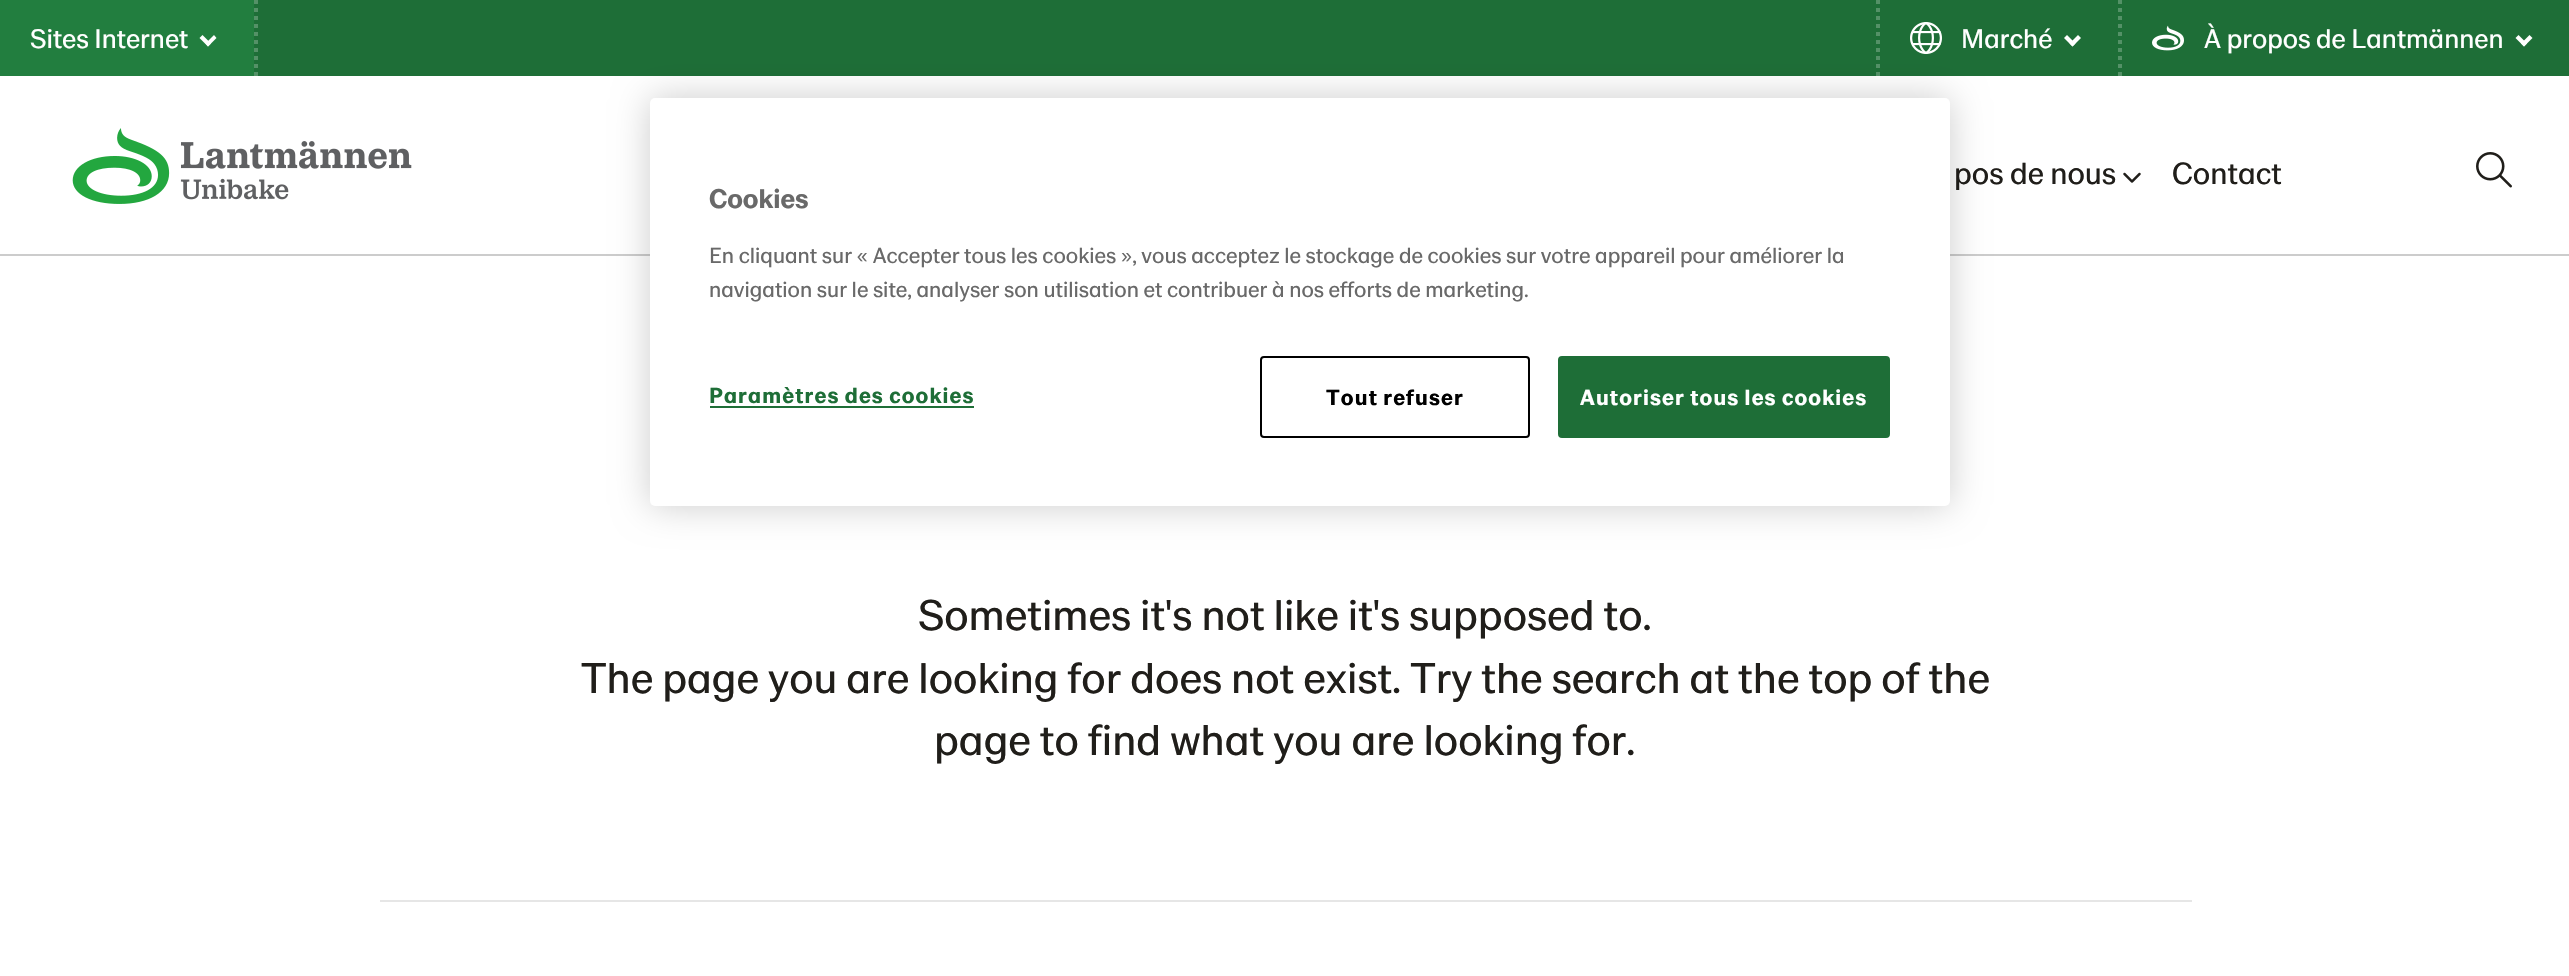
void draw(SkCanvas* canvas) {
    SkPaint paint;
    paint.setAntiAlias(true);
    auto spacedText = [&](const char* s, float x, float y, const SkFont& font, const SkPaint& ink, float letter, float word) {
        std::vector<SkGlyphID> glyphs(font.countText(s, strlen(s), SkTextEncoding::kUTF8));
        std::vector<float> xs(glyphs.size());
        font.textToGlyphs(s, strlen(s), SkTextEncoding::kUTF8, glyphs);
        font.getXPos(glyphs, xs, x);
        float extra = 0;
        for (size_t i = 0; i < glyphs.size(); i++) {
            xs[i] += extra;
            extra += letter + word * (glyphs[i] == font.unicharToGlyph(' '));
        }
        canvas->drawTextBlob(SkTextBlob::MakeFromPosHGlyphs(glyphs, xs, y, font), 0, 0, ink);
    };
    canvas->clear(0xFFFFFFFF);
    paint.setColor(0xFF1E6E37);
    canvas->drawRect(SkRect::MakeXYWH(254, 0, 2315, 76), paint);
    paint.setStyle(SkPaint::kStroke_Style);
    paint.setStrokeWidth(4);
    paint.setColor(0xFF549167);
    paint.setPathEffect(SkDashPathEffect::Make({{4, 4}}, 0));
    canvas->drawPath(SkPathBuilder().moveTo(256, 0).lineTo(256, 76).detach(), paint);
    paint.setPathEffect(nullptr);
    paint.setStyle(SkPaint::kFill_Style);
    paint.setColor(0xFF227E3F);
    canvas->drawRect(SkRect::MakeXYWH(0, 0, 254, 76), paint);
    SkFont font1(fontMgr->matchFamilyStyle("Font", SkFontStyle::Normal()), 28);
    font1.setSubpixel(true);
    paint.setColor(0xFFFFFFFF);
    canvas->drawString("Sites Internet", 30, 48, font1, paint);
    canvas->drawPath(SkPathBuilder().moveTo(216.5f, 38).lineTo(208, 46.5f).lineTo(205.5f, 43.5f).lineTo(214, 35).close().detach(), paint);
    canvas->drawPath(SkPathBuilder().moveTo(211, 43.5f).lineTo(208, 46.5f).lineTo(199.5f, 38).lineTo(202.5f, 35).close().detach(), paint);
    paint.setStyle(SkPaint::kStroke_Style);
    paint.setColor(0xFF549167);
    paint.setPathEffect(SkDashPathEffect::Make({{4, 4}}, 0));
    canvas->drawPath(SkPathBuilder().moveTo(1878, 0).lineTo(1878, 76).detach(), paint);
    paint.setPathEffect(nullptr);
    canvas->drawImageRect(SkImages::DeferredFromEncodedData(SkData::MakeFromFileName("img1.png")), SkRect::MakeXYWH(1910, 22, 32, 32), SkSamplingOptions());
    paint.setStyle(SkPaint::kFill_Style);
    paint.setColor(0xFFFFFFFF);
    canvas->drawString("Marché", 1961, 48, font1, paint);
    canvas->drawPath(SkPathBuilder().moveTo(2081, 38).lineTo(2072.5f, 46.5f).lineTo(2069.5f, 43.5f).lineTo(2078, 35).close().detach(), paint);
    canvas->drawPath(SkPathBuilder().moveTo(2075.5f, 43.5f).lineTo(2072.5f, 46.5f).lineTo(2064, 38).lineTo(2067, 35).close().detach(), paint);
    paint.setStyle(SkPaint::kStroke_Style);
    paint.setColor(0xFF549167);
    paint.setPathEffect(SkDashPathEffect::Make({{4, 4}}, 0));
    canvas->drawPath(SkPathBuilder().moveTo(2120, 0).lineTo(2120, 76).detach(), paint);
    paint.setPathEffect(nullptr);
    canvas->drawImageRect(SkImages::DeferredFromEncodedData(SkData::MakeFromFileName("img2.png")), SkRect::MakeXYWH(2152, 25, 32, 26), SkSamplingOptions());
    paint.setStyle(SkPaint::kFill_Style);
    paint.setColor(0xFFFFFFFF);
    canvas->drawString("À propos de Lantmännen", 2204, 48, font1, paint);
    canvas->drawPath(SkPathBuilder().moveTo(2532.5f, 38).lineTo(2524, 46.5f).lineTo(2521, 43.5f).lineTo(2529.5f, 35).close().detach(), paint);
    canvas->drawPath(SkPathBuilder().moveTo(2527, 43.5f).lineTo(2524, 46.5f).lineTo(2515.5f, 38).lineTo(2518.5f, 35).close().detach(), paint);
    paint.setColor(0xFFCCCCCC);
    canvas->drawRect(SkRect::MakeXYWH(0, 254, 2569, 2), paint);
    canvas->drawImageRect(SkImages::DeferredFromEncodedData(SkData::MakeFromFileName("img3.png")), SkRect::MakeXYWH(72, 128, 340, 76), SkSamplingOptions());
    SkFont font2(fontMgr->matchFamilyStyle("Font", SkFontStyle::Normal()), 32);
    font2.setSubpixel(true);
    paint.setColor(0xFF201E1A);
    canvas->drawString("pos de nous", 1954, 184, font2, paint);
    canvas->drawImageRect(SkImages::DeferredFromEncodedData(SkData::MakeFromFileName("img4.png")), SkRect::MakeXYWH(2123, 172, 18, 11), SkSamplingOptions());
    canvas->drawString("Contact", 2172, 184, font2, paint);
    canvas->drawImageRect(SkImages::DeferredFromEncodedData(SkData::MakeFromFileName("img5.png")), SkRect::MakeXYWH(2476, 152, 36, 36), SkSamplingOptions());
    SkFont font3(fontMgr->matchFamilyStyle("Font", SkFontStyle::Normal()), 44.8f);
    font3.setSubpixel(true);
    canvas->drawString("Sometimes it's not like it's supposed to.", 918, 630, font3, paint);
    canvas->drawString("The page you are looking for does not exist. Try the search at the top of the", 581, 693, font3, paint);
    canvas->drawString("page to find what you are looking for.", 934, 755, font3, paint);
    paint.setColor(0xFFE6E6E6);
    canvas->drawRect(SkRect::MakeXYWH(380, 900, 1812, 2), paint);
    paint.setColor(0x33000000);
    paint.setMaskFilter(SkMaskFilter::MakeBlur(kNormal_SkBlurStyle, 18));
    canvas->drawRoundRect(SkRect::MakeXYWH(650, 98, 1300, 408), 5, 5, paint);
    paint.setMaskFilter(nullptr);
    paint.setColor(0xFFFFFFFF);
    canvas->drawRoundRect(SkRect::MakeXYWH(650, 98, 1300, 408), 5, 5, paint);
    SkFont font4(fontMgr->matchFamilyStyle("Font", SkFontStyle::Bold()), 28);
    font4.setSubpixel(true);
    paint.setColor(0xFF696969);
    canvas->drawString("Cookies", 709, 208, font4, paint);
    SkFont font5(fontMgr->matchFamilyStyle("Font", SkFontStyle::Normal()), 22.75f);
    font5.setSubpixel(true);
    canvas->drawString("En cliquant sur « Accepter tous les cookies », vous acceptez le stockage de cookies sur votre appareil pour améliorer la", 709, 263, font5, paint);
    canvas->drawString("navigation sur le site, analyser son utilisation et contribuer à nos efforts de marketing.", 709, 297, font5, paint);
    SkFont font6(fontMgr->matchFamilyStyle("Font", SkFontStyle::Bold()), 22.75f);
    font6.setSubpixel(true);
    paint.setColor(0xFF1E6E37);
    spacedText("Paramètres des cookies", 709, 403, font6, paint, 1.15f, 0);
    canvas->drawRect(SkRect::MakeXYWH(710, 406, 264, 2), paint);
    paint.setStyle(SkPaint::kStroke_Style);
    paint.setStrokeWidth(2);
    paint.setColor(0xFF000000);
    canvas->drawRoundRect(SkRect::MakeXYWH(1261, 357, 268, 80), 3, 3, paint);
    paint.setStyle(SkPaint::kFill_Style);
    spacedText("Tout refuser", 1326, 405, font6, paint, 1.15f, 0);
    paint.setColor(0xFF1E6E37);
    canvas->drawRoundRect(SkRect::MakeXYWH(1559, 357, 330, 80), 3, 3, paint);
    paint.setStyle(SkPaint::kStroke_Style);
    canvas->drawRoundRect(SkRect::MakeXYWH(1559, 357, 330, 80), 3, 3, paint);
    paint.setStyle(SkPaint::kFill_Style);
    paint.setColor(0xFFFFFFFF);
    spacedText("Autoriser tous les cookies", 1580, 405, font6, paint, 1.15f, 0);
}
